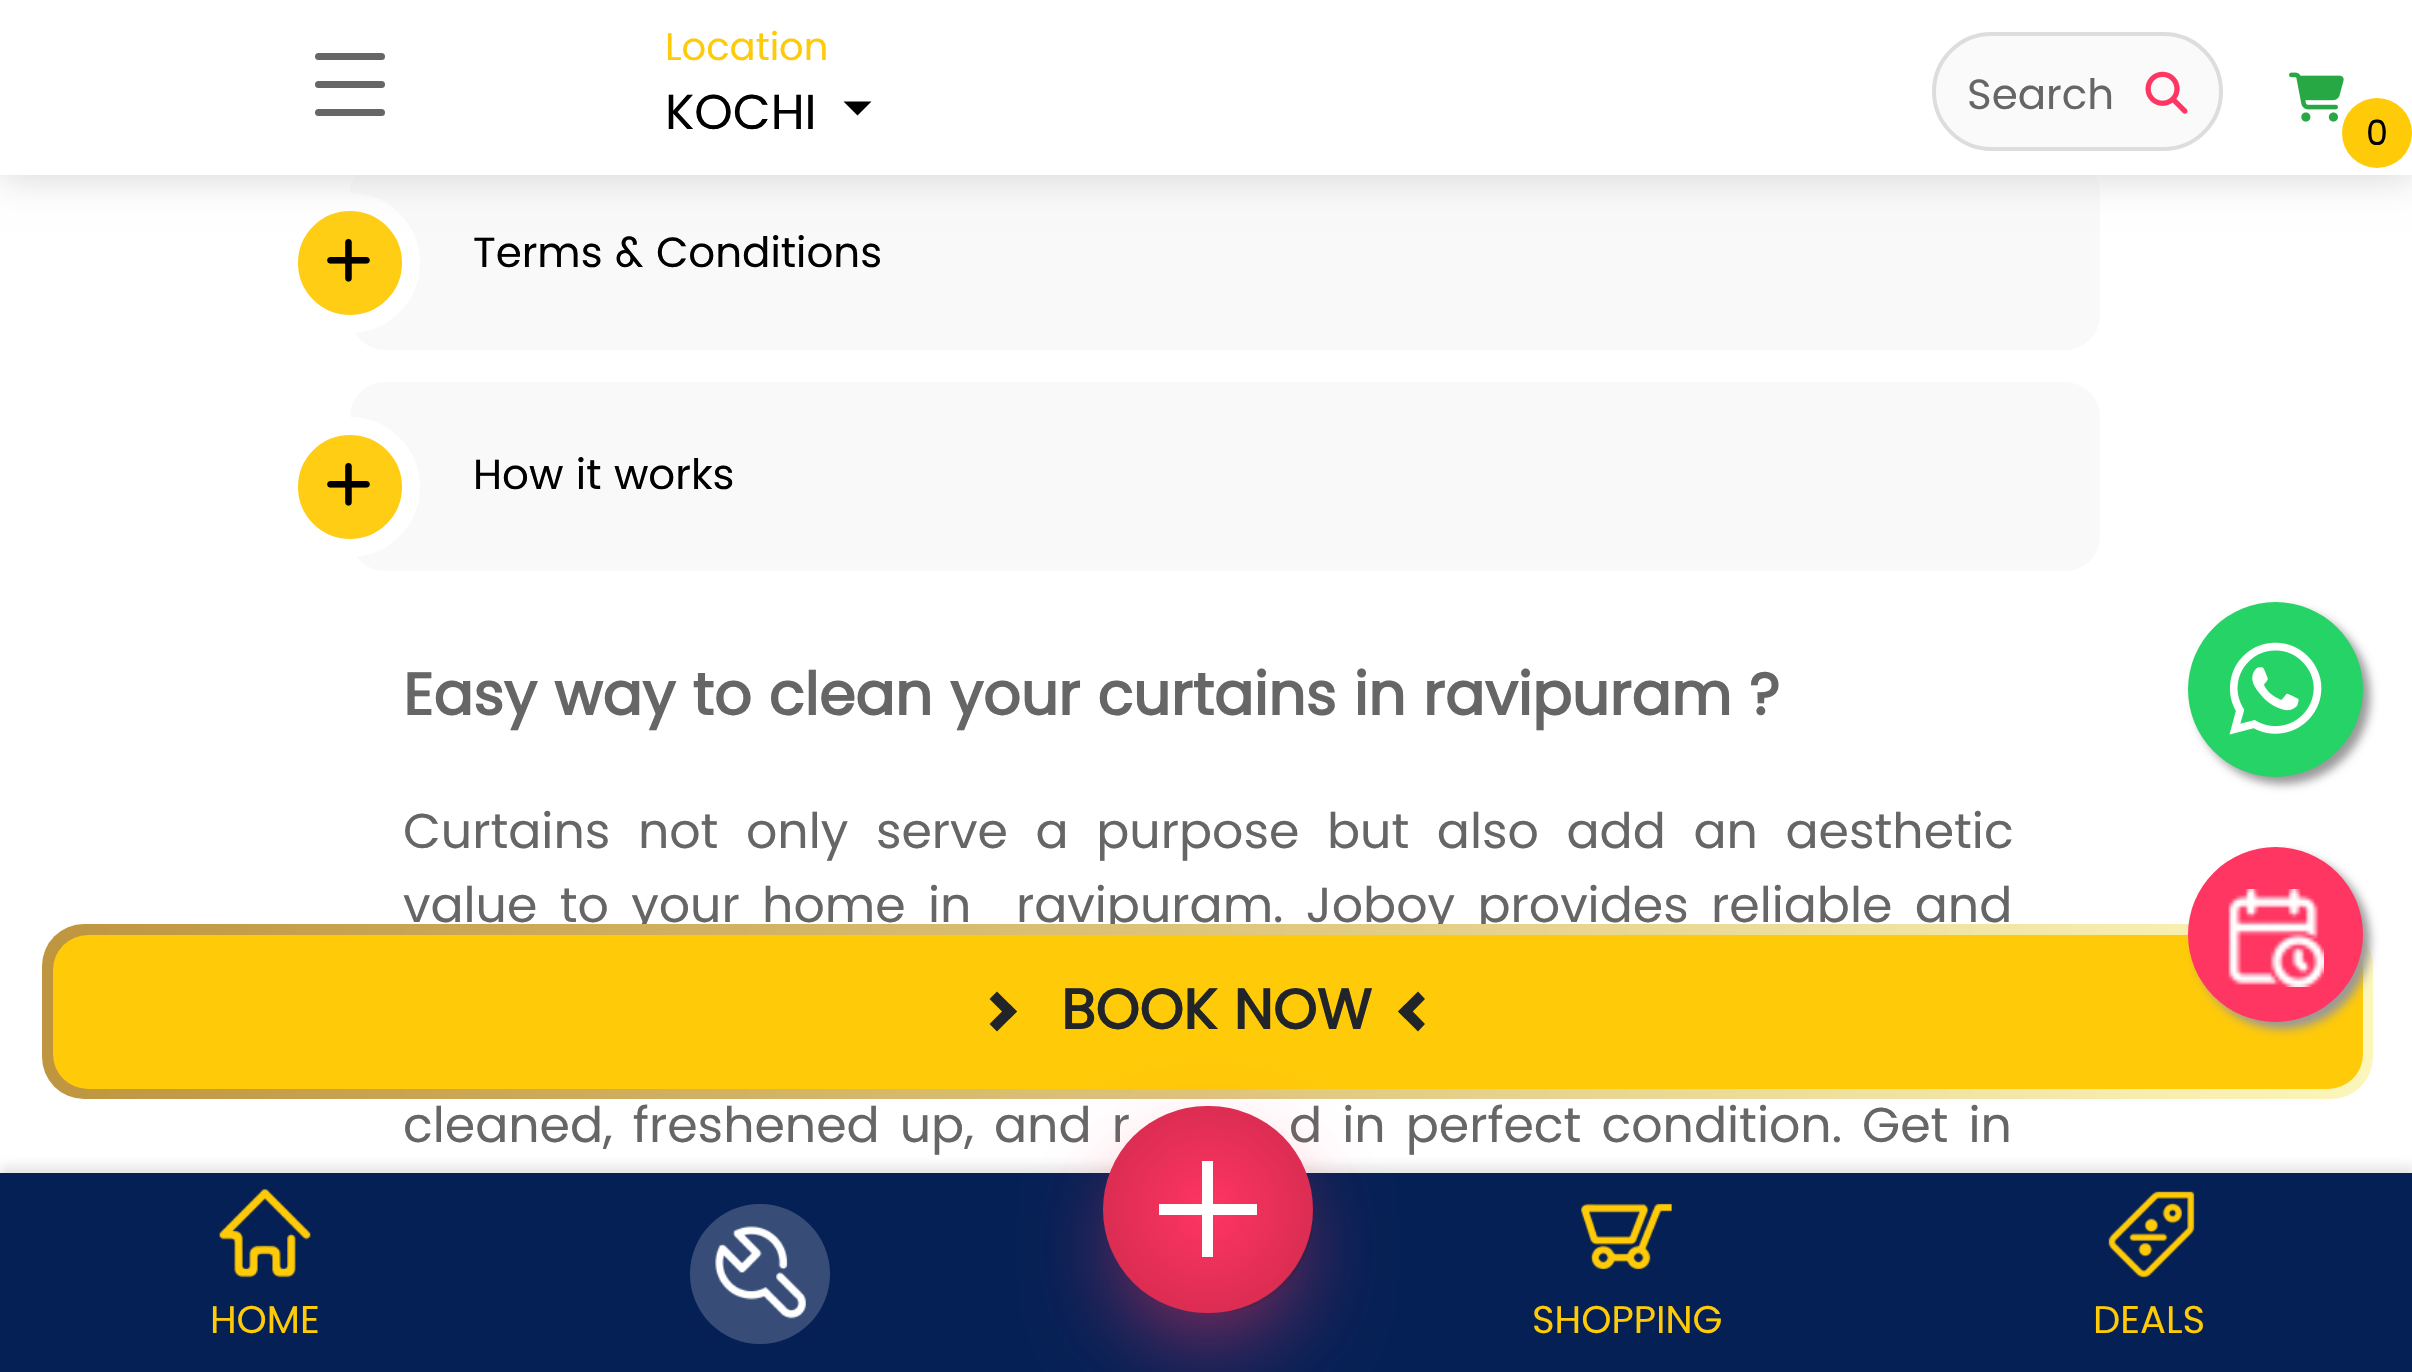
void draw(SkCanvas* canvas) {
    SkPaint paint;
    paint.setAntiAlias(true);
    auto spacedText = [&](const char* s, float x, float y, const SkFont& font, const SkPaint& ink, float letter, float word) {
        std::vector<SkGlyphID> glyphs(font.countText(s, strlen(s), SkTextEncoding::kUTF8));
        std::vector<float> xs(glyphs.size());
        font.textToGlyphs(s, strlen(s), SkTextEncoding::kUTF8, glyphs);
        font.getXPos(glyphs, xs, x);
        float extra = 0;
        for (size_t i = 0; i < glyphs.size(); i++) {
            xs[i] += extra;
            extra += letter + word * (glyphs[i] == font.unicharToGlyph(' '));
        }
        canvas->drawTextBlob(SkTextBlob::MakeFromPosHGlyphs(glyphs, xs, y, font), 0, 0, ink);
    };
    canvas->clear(0xFFFFFFFF);
    paint.setColor(0xFFF9F9F9);
    canvas->drawRoundRect(SkRect::MakeXYWH(350, 158, 1750, 192), 35, 35, paint);
    paint.setColor(0xFFFFCD14);
    canvas->drawCircle(350, 263, 61, paint);
    paint.setStyle(SkPaint::kStroke_Style);
    paint.setStrokeWidth(18);
    paint.setColor(0xFFFFFFFF);
    canvas->drawCircle(350, 263, 61, paint);
    paint.setStyle(SkPaint::kFill_Style);
    paint.setColor(0xFFDADADA);
    paint.setMaskFilter(SkMaskFilter::MakeBlur(kNormal_SkBlurStyle, 17.5f));
    canvas->drawRect(SkRect::MakeXYWH(0, 4, 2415, 175), paint);
    paint.setMaskFilter(nullptr);
    paint.setColor(0xFFFFFFFF);
    canvas->drawRect(SkRect::MakeXYWH(0, 0, 2412, 175), paint);
    paint.setColor(0xFF666666);
    canvas->drawRoundRect(SkRect::MakeXYWH(315, 53, 70, 7), 3.5f, 3.5f, paint);
    canvas->drawRoundRect(SkRect::MakeXYWH(315, 81, 70, 7), 3.5f, 3.5f, paint);
    canvas->drawRoundRect(SkRect::MakeXYWH(315, 109, 70, 7), 3.5f, 3.5f, paint);
    SkFont font1(fontMgr->matchFamilyStyle("Poppins", SkFontStyle::Normal()), 38.5f);
    font1.setSubpixel(true);
    paint.setColor(0xFFFFCA08);
    canvas->drawString("Location", 665, 60, font1, paint);
    SkFont font2(fontMgr->matchFamilyStyle("Poppins", SkFontStyle::Normal()), 49);
    font2.setSubpixel(true);
    paint.setColor(0xFF000000);
    canvas->drawString("KOCHI", 665, 129, font2, paint);
    canvas->drawPath(SkPathBuilder().moveTo(843.5f, 101.5f).lineTo(871.5f, 101.5f).lineTo(857.5f, 115.5f).close().detach(), paint);
    paint.setColor(0xFFFAFAFA);
    canvas->drawRoundRect(SkRect::MakeXYWH(1934, 34, 287, 115), 57.5f, 57.5f, paint);
    paint.setStyle(SkPaint::kStroke_Style);
    paint.setStrokeWidth(4);
    paint.setColor(0xFFDDDDDD);
    canvas->drawRoundRect(SkRect::MakeXYWH(1934, 34, 287, 115), 57.5f, 57.5f, paint);
    SkFont font3(fontMgr->matchFamilyStyle("Poppins", SkFontStyle::Normal()), 42);
    font3.setSubpixel(true);
    paint.setStyle(SkPaint::kFill_Style);
    paint.setColor(0xFF666666);
    canvas->drawString("Search", 1967, 109, font3, paint);
    canvas->drawImageRect(SkImages::DeferredFromEncodedData(SkData::MakeFromFileName("img1.png")), SkRect::MakeXYWH(2145, 71, 43, 43), SkSamplingOptions());
    canvas->drawImageRect(SkImages::DeferredFromEncodedData(SkData::MakeFromFileName("img2.png")), SkRect::MakeXYWH(2289, 72, 55, 50), SkSamplingOptions());
    paint.setColor(0xFFFFCA08);
    canvas->drawCircle(2377, 133, 35, paint);
    SkFont font4(fontMgr->matchFamilyStyle("Poppins", SkFontStyle::Normal()), 35);
    font4.setSubpixel(true);
    paint.setColor(0xFF000000);
    canvas->drawString("0", 2366, 145, font4, paint);
    canvas->drawImageRect(SkImages::DeferredFromEncodedData(SkData::MakeFromFileName("img3.png")), SkRect::MakeXYWH(327, 239, 43, 43), SkSamplingOptions());
    canvas->drawString("Terms & Conditions", 473, 267, font3, paint);
    paint.setColor(0xFFF9F9F9);
    canvas->drawRoundRect(SkRect::MakeXYWH(350, 382, 1750, 189), 35, 35, paint);
    paint.setColor(0xFFFFCD14);
    canvas->drawCircle(350, 487, 61, paint);
    paint.setStyle(SkPaint::kStroke_Style);
    paint.setStrokeWidth(18);
    paint.setColor(0xFFFFFFFF);
    canvas->drawCircle(350, 487, 61, paint);
    canvas->drawImageRect(SkImages::DeferredFromEncodedData(SkData::MakeFromFileName("img3.png")), SkRect::MakeXYWH(327, 463, 43, 43), SkSamplingOptions());
    paint.setStyle(SkPaint::kFill_Style);
    paint.setColor(0xFF000000);
    canvas->drawString("How it works", 473, 489, font3, paint);
    SkFont font5(fontMgr->matchFamilyStyle("Poppins", SkFontStyle::Bold()), 58.8f);
    font5.setSubpixel(true);
    paint.setColor(0xFF666666);
    spacedText("Easy way to clean your curtains in ravipuram ?", 403, 715, font5, paint, 0, -0.25f);
    spacedText("Curtains not only serve a purpose but also add an aesthetic", 403, 848, font2, paint, 0, 13);
    spacedText("value to your home in  ravipuram. Joboy provides reliable and", 403, 922, font2, paint, 0, 7.75f);
    spacedText("cleaned, freshened up, and r", 403, 1142, font2, paint, 0, 5.5f);
    spacedText("d in perfect condition. Get in", 1289, 1142, font2, paint, 0, 5.5f);
    paint.setColor(0xFF999999);
    paint.setMaskFilter(SkMaskFilter::MakeBlur(kNormal_SkBlurStyle, 5));
    canvas->drawRoundRect(SkRect::MakeXYWH(2195, 609, 175, 175), 87.5f, 87.5f, paint);
    paint.setMaskFilter(nullptr);
    paint.setColor(0xFF25D366);
    canvas->drawCircle(2275.5f, 689.5f, 87.5f, paint);
    canvas->drawImageRect(SkImages::DeferredFromEncodedData(SkData::MakeFromFileName("img4.png")), SkRect::MakeXYWH(2229, 642, 93, 93), SkSamplingOptions());
    {
        const SkColor colors[] = {0xFFBF953F, 0xFFFCF6BA, 0xFFB38728, 0xFFFBF5B7, 0xFF6F4E12};
        const float stops[] = {0, 0.25f, 0.5f, 0.75f, 1};
        const SkPoint ends[] = {{42, 1012}, {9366, 1011}};
        paint.setShader(SkGradientShader::MakeLinear(ends, colors, stops, 5, SkTileMode::kClamp));
        paint.setAlpha(255);
    }
    canvas->drawRoundRect(SkRect::MakeXYWH(42, 924, 2331, 175), 42, 42, paint);
    paint.setShader(nullptr);
    paint.setColor(0xFFFFCA08);
    canvas->drawRoundRect(SkRect::MakeXYWH(53, 935, 2310, 154), 35, 35, paint);
    paint.setColor(0xFF212529);
    canvas->drawPath(SkPathBuilder().moveTo(989.5f, 999).lineTo(997, 991.5f).lineTo(1017, 1011.5f).lineTo(1009.5f, 1019).close().detach(), paint);
    canvas->drawPath(SkPathBuilder().moveTo(989.5f, 1024).lineTo(1009.5f, 1004).lineTo(1017, 1011.5f).lineTo(997, 1031.5f).close().detach(), paint);
    SkFont font6(fontMgr->matchFamilyStyle("Poppins", SkFontStyle::Bold()), 56);
    font6.setSubpixel(true);
    canvas->drawString("BOOK NOW", 1061, 1029, font6, paint);
    canvas->drawPath(SkPathBuilder().moveTo(1425, 1024).lineTo(1418, 1031.5f).lineTo(1398, 1011.5f).lineTo(1405.5f, 1004).close().detach(), paint);
    canvas->drawPath(SkPathBuilder().moveTo(1425, 999).lineTo(1405.5f, 1019).lineTo(1398, 1011.5f).lineTo(1418, 991.5f).close().detach(), paint);
    paint.setColor(0xFF999999);
    paint.setMaskFilter(SkMaskFilter::MakeBlur(kNormal_SkBlurStyle, 5));
    canvas->drawRoundRect(SkRect::MakeXYWH(2195, 854, 175, 175), 87.5f, 87.5f, paint);
    paint.setMaskFilter(nullptr);
    paint.setColor(0xFFFF3562);
    canvas->drawCircle(2275.5f, 934.5f, 87.5f, paint);
    canvas->drawImageRect(SkImages::DeferredFromEncodedData(SkData::MakeFromFileName("img5.png")), SkRect::MakeXYWH(2228, 889, 96, 98), SkSamplingOptions());
    paint.setColor(0x61BABABA);
    paint.setMaskFilter(SkMaskFilter::MakeBlur(kNormal_SkBlurStyle, 5));
    canvas->drawRect(SkRect::MakeXYWH(0, 1166, 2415, 199), paint);
    paint.setMaskFilter(nullptr);
    paint.setColor(0xFF052055);
    canvas->drawRect(SkRect::MakeXYWH(0, 1173, 2412, 199), paint);
    canvas->drawImageRect(SkImages::DeferredFromEncodedData(SkData::MakeFromFileName("img6.png")), SkRect::MakeXYWH(219, 1189, 92, 89), SkSamplingOptions());
    paint.setColor(0xFFFFCA08);
    canvas->drawString("HOME", 210, 1333, font1, paint);
    paint.setColor(0xFF374D77);
    canvas->drawCircle(760, 1274, 70, paint);
    canvas->drawImageRect(SkImages::DeferredFromEncodedData(SkData::MakeFromFileName("img7.png")), SkRect::MakeXYWH(715, 1226, 91, 93), SkSamplingOptions());
    paint.setColor(0x24000000);
    canvas->drawPath(SkPathBuilder().moveTo(1146, 1280).cubicTo(1182, 1321, 1246, 1325, 1285, 1285).cubicTo(1325, 1246, 1321, 1182, 1280, 1146).cubicTo(1311, 1183, 1309, 1239, 1274, 1274).cubicTo(1239, 1309, 1183, 1311, 1146, 1280).close().detach(), paint);
    paint.setColor(0x99FF3562);
    paint.setMaskFilter(SkMaskFilter::MakeBlur(kNormal_SkBlurStyle, 48));
    canvas->drawRoundRect(SkRect::MakeXYWH(1124, 1162, 168, 172), 84, 84, paint);
    paint.setMaskFilter(nullptr);
    {
        const SkColor colors[] = {0xFFFF3562, 0xFFCD294B};
        const float stops[] = {0, 1};
        paint.setShader(SkGradientShader::MakeRadial({1208, 1209}, 147, colors, stops, 2, SkTileMode::kClamp));
        paint.setAlpha(255);
    }
    canvas->drawRoundRect(SkRect::MakeXYWH(1103, 1106, 210, 207), 103.5f, 103.5f, paint);
    paint.setShader(nullptr);
    paint.setColor(0xFFFFFFFF);
    canvas->drawRect(SkRect::MakeXYWH(1159, 1204, 98, 11), paint);
    canvas->drawRect(SkRect::MakeXYWH(1202, 1161, 11, 96), paint);
    canvas->drawImageRect(SkImages::DeferredFromEncodedData(SkData::MakeFromFileName("img8.png")), SkRect::MakeXYWH(1581, 1203, 91, 67), SkSamplingOptions());
    paint.setColor(0xFFFFCA08);
    canvas->drawString("SHOPPING", 1532, 1333, font1, paint);
    canvas->drawImageRect(SkImages::DeferredFromEncodedData(SkData::MakeFromFileName("img9.png")), SkRect::MakeXYWH(2108, 1191, 87, 87), SkSamplingOptions());
    canvas->drawString("DEALS", 2093, 1333, font1, paint);
}
